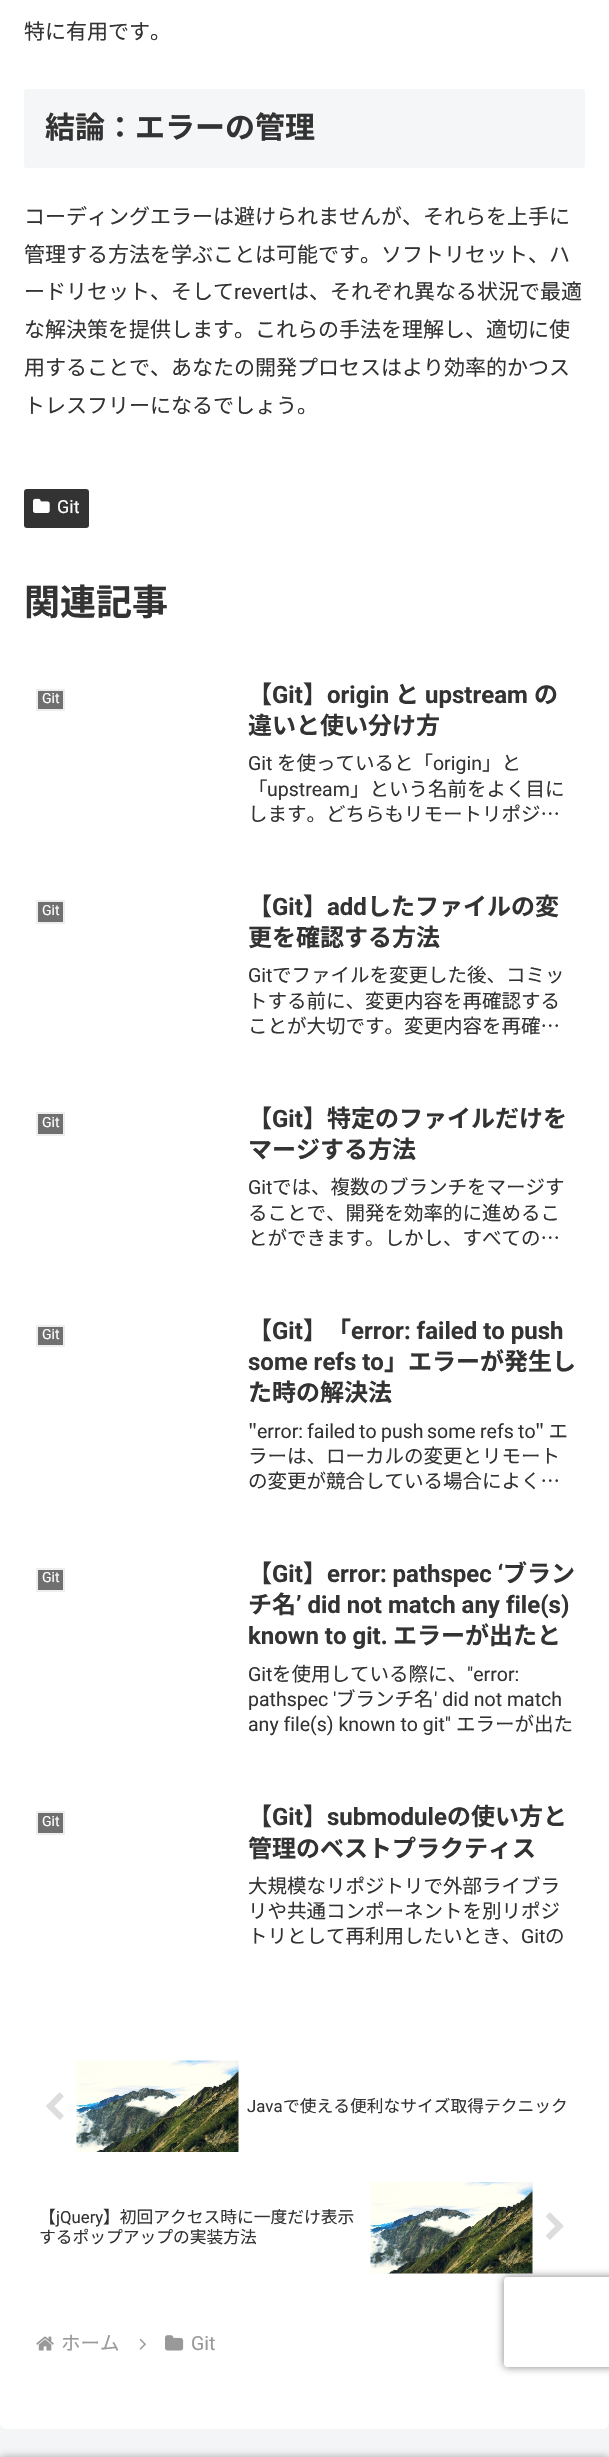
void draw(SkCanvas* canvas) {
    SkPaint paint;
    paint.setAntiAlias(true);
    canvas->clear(0xFFF4F5F7);
    paint.setColor(0xFFFFFFFF);
    canvas->drawRoundRect(SkRect::MakeXYWH(0, -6, 609, 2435), 6, 6, paint);
    SkFont font1(fontMgr->matchFamilyStyle("Noto Sans JP", SkFontStyle::Normal()), 21);
    font1.setSubpixel(true);
    paint.setColor(0xFF333333);
    canvas->drawString("特に有用です。", 24, 39, font1, paint);
    paint.setColor(0xFFF5F6F7);
    canvas->drawRoundRect(SkRect::MakeXYWH(24, 89, 561, 79), 3, 3, paint);
    SkFont font2(fontMgr->matchFamilyStyle("Noto Sans JP", SkFontStyle::Bold()), 30);
    font2.setSubpixel(true);
    paint.setColor(0xFF333333);
    canvas->drawString("結論：エラーの管理", 45, 138, font2, paint);
    canvas->drawString("コーディングエラーは避けられませんが、それらを上手に", 24, 224, font1, paint);
    canvas->drawString("管理する方法を学ぶことは可能です。ソフトリセット、ハ", 24, 262, font1, paint);
    canvas->drawString("ードリセット、そして", 24, 299, font1, paint);
    SkFont font3(fontMgr->matchFamilyStyle("Roboto", SkFontStyle::Normal()), 21);
    font3.setSubpixel(true);
    canvas->drawString("revert", 234, 299, font3, paint);
    canvas->drawString("は、それぞれ異なる状況で最適", 288, 299, font1, paint);
    canvas->drawString("な解決策を提供します。これらの手法を理解し、適切に使", 24, 337, font1, paint);
    canvas->drawString("用することで、あなたの開発プロセスはより効率的かつス", 24, 375, font1, paint);
    canvas->drawString("トレスフリーになるでしょう。", 24, 413, font1, paint);
    canvas->drawRoundRect(SkRect::MakeXYWH(24, 489, 65, 39), 3, 3, paint);
    canvas->drawImageRect(SkImages::DeferredFromEncodedData(SkData::MakeFromFileName("img1.png")), SkRect::MakeXYWH(33, 498, 17, 15), SkSamplingOptions());
    SkFont font4(fontMgr->matchFamilyStyle("Roboto", SkFontStyle::Normal()), 18);
    font4.setSubpixel(true);
    paint.setColor(0xFFFFFFFF);
    canvas->drawString("Git", 57, 513, font4, paint);
    SkFont font5(fontMgr->matchFamilyStyle("Noto Sans JP", SkFontStyle::Bold()), 36);
    font5.setSubpixel(true);
    paint.setColor(0xFF333333);
    canvas->drawString("関連記事", 24, 615, font5, paint);
    paint.setColor(0xFF707070);
    canvas->drawRect(SkRect::MakeXYWH(37, 690, 27, 20), paint);
    paint.setStyle(SkPaint::kStroke_Style);
    paint.setStrokeWidth(2);
    paint.setColor(0xFFEEEEEE);
    canvas->drawRect(SkRect::MakeXYWH(37, 690, 27, 20), paint);
    SkFont font6(fontMgr->matchFamilyStyle("Roboto", SkFontStyle::Normal()), 14);
    font6.setSubpixel(true);
    paint.setStyle(SkPaint::kFill_Style);
    paint.setColor(0xFFFFFFFF);
    canvas->drawString("Git", 42, 703, font6, paint);
    SkFont font7(fontMgr->matchFamilyStyle("Noto Sans JP", SkFontStyle::Bold()), 24);
    font7.setSubpixel(true);
    paint.setColor(0xFF333333);
    canvas->drawString("【", 248, 703, font7, paint);
    SkFont font8(fontMgr->matchFamilyStyle("Roboto", SkFontStyle::Bold()), 24);
    font8.setSubpixel(true);
    canvas->drawString("Git", 272, 703, font8, paint);
    canvas->drawString("】", 303, 703, font7, paint);
    canvas->drawString("origin", 327, 703, font8, paint);
    canvas->drawString("と", 395, 703, font7, paint);
    canvas->drawString("upstream", 425, 703, font8, paint);
    canvas->drawString("の", 534, 703, font7, paint);
    canvas->drawString("違いと使い分け方", 248, 734, font7, paint);
    SkFont font9(fontMgr->matchFamilyStyle("Roboto", SkFontStyle::Normal()), 19.5f);
    font9.setSubpixel(true);
    canvas->drawString("Git", 248, 770, font9, paint);
    SkFont font10(fontMgr->matchFamilyStyle("Noto Sans JP", SkFontStyle::Normal()), 19.5f);
    font10.setSubpixel(true);
    canvas->drawString("を使っていると「", 277, 770, font10, paint);
    canvas->drawString("origin", 433, 770, font9, paint);
    canvas->drawString("」と", 482, 770, font10, paint);
    canvas->drawString("「", 248, 796, font10, paint);
    canvas->drawString("upstream", 267, 796, font9, paint);
    canvas->drawString("」という名前をよく目に", 350, 796, font10, paint);
    canvas->drawString("します。どちらもリモートリポジ…", 248, 821, font10, paint);
    paint.setColor(0xFF707070);
    canvas->drawRect(SkRect::MakeXYWH(37, 901, 27, 22), paint);
    paint.setStyle(SkPaint::kStroke_Style);
    paint.setColor(0xFFEEEEEE);
    canvas->drawRect(SkRect::MakeXYWH(37, 901, 27, 22), paint);
    paint.setStyle(SkPaint::kFill_Style);
    paint.setColor(0xFFFFFFFF);
    canvas->drawString("Git", 42, 915, font6, paint);
    paint.setColor(0xFF333333);
    canvas->drawString("【", 248, 915, font7, paint);
    canvas->drawString("Git", 272, 915, font8, paint);
    canvas->drawString("】", 303, 915, font7, paint);
    canvas->drawString("add", 327, 915, font8, paint);
    canvas->drawString("したファイルの変", 367, 915, font7, paint);
    canvas->drawString("更を確認する方法", 248, 946, font7, paint);
    canvas->drawString("Git", 248, 982, font9, paint);
    canvas->drawString("でファイルを変更した後、コミッ", 272, 982, font10, paint);
    canvas->drawString("トする前に、変更内容を再確認する", 248, 1008, font10, paint);
    canvas->drawString("ことが大切です。変更内容を再確…", 248, 1033, font10, paint);
    paint.setColor(0xFF707070);
    canvas->drawRect(SkRect::MakeXYWH(37, 1113, 27, 22), paint);
    paint.setStyle(SkPaint::kStroke_Style);
    paint.setColor(0xFFEEEEEE);
    canvas->drawRect(SkRect::MakeXYWH(37, 1113, 27, 22), paint);
    paint.setStyle(SkPaint::kFill_Style);
    paint.setColor(0xFFFFFFFF);
    canvas->drawString("Git", 42, 1127, font6, paint);
    paint.setColor(0xFF333333);
    canvas->drawString("【", 248, 1127, font7, paint);
    canvas->drawString("Git", 272, 1127, font8, paint);
    canvas->drawString("】特定のファイルだけを", 303, 1127, font7, paint);
    canvas->drawString("マージする方法", 248, 1158, font7, paint);
    canvas->drawString("Git", 248, 1194, font9, paint);
    canvas->drawString("では、複数のブランチをマージす", 272, 1194, font10, paint);
    canvas->drawString("ることで、開発を効率的に進めるこ", 248, 1220, font10, paint);
    canvas->drawString("とができます。しかし、すべての…", 248, 1245, font10, paint);
    paint.setColor(0xFF707070);
    canvas->drawRect(SkRect::MakeXYWH(37, 1326, 27, 20), paint);
    paint.setStyle(SkPaint::kStroke_Style);
    paint.setColor(0xFFEEEEEE);
    canvas->drawRect(SkRect::MakeXYWH(37, 1326, 27, 20), paint);
    paint.setStyle(SkPaint::kFill_Style);
    paint.setColor(0xFFFFFFFF);
    canvas->drawString("Git", 42, 1339, font6, paint);
    paint.setColor(0xFF333333);
    canvas->drawString("【", 248, 1339, font7, paint);
    canvas->drawString("Git", 272, 1339, font8, paint);
    canvas->drawString("】「", 303, 1339, font7, paint);
    canvas->drawString("error: failed to push", 351, 1339, font8, paint);
    canvas->drawString("some refs to", 248, 1370, font8, paint);
    canvas->drawString("」エラーが発生し", 384, 1370, font7, paint);
    canvas->drawString("た時の解決法", 248, 1401, font7, paint);
    canvas->drawString("\"", 248, 1438, font10, paint);
    canvas->drawString("error:", 257, 1438, font9, paint);
    canvas->drawString("failed", 307, 1438, font9, paint);
    canvas->drawString("to", 359, 1438, font9, paint);
    canvas->drawString("push", 381, 1438, font9, paint);
    canvas->drawString("some", 427, 1438, font9, paint);
    canvas->drawString("refs", 480, 1438, font9, paint);
    canvas->drawString("to", 518, 1438, font9, paint);
    canvas->drawString("\" エ", 535, 1438, font10, paint);
    canvas->drawString("ラーは、ローカルの変更とリモート", 248, 1463, font10, paint);
    canvas->drawString("の変更が競合している場合によく…", 248, 1488, font10, paint);
    paint.setColor(0xFF707070);
    canvas->drawRect(SkRect::MakeXYWH(37, 1569, 27, 22), paint);
    paint.setStyle(SkPaint::kStroke_Style);
    paint.setColor(0xFFEEEEEE);
    canvas->drawRect(SkRect::MakeXYWH(37, 1569, 27, 22), paint);
    paint.setStyle(SkPaint::kFill_Style);
    paint.setColor(0xFFFFFFFF);
    canvas->drawString("Git", 42, 1582, font6, paint);
    paint.setColor(0xFF333333);
    canvas->drawString("【", 248, 1582, font7, paint);
    canvas->drawString("Git", 272, 1582, font8, paint);
    canvas->drawString("】", 303, 1582, font7, paint);
    canvas->drawString("error: pathspec ‘", 327, 1582, font8, paint);
    canvas->drawString("ブラン", 503, 1582, font7, paint);
    canvas->drawString("チ名", 248, 1613, font7, paint);
    canvas->drawString("’ did not match any file(s)", 296, 1613, font8, paint);
    canvas->drawString("known to git.", 248, 1644, font8, paint);
    canvas->drawString("エラーが出たと", 393, 1644, font7, paint);
    canvas->drawString("Git", 248, 1681, font9, paint);
    canvas->drawString("を使用している際に、", 272, 1681, font10, paint);
    canvas->drawString("\"error:", 467, 1681, font9, paint);
    canvas->drawString("pathspec '", 248, 1706, font9, paint);
    canvas->drawString("ブランチ名", 336, 1706, font10, paint);
    canvas->drawString("' did not match", 434, 1706, font9, paint);
    canvas->drawString("any file(s) known to git\"", 248, 1731, font9, paint);
    canvas->drawString("エラーが出た", 456, 1731, font10, paint);
    paint.setColor(0xFF707070);
    canvas->drawRect(SkRect::MakeXYWH(37, 1812, 27, 22), paint);
    paint.setStyle(SkPaint::kStroke_Style);
    paint.setColor(0xFFEEEEEE);
    canvas->drawRect(SkRect::MakeXYWH(37, 1812, 27, 22), paint);
    paint.setStyle(SkPaint::kFill_Style);
    paint.setColor(0xFFFFFFFF);
    canvas->drawString("Git", 42, 1826, font6, paint);
    paint.setColor(0xFF333333);
    canvas->drawString("【", 248, 1825, font7, paint);
    canvas->drawString("Git", 272, 1825, font8, paint);
    canvas->drawString("】", 303, 1825, font7, paint);
    canvas->drawString("submodule", 327, 1825, font8, paint);
    canvas->drawString("の使い方と", 447, 1825, font7, paint);
    canvas->drawString("管理のベストプラクティス", 248, 1857, font7, paint);
    canvas->drawString("大規模なリポジトリで外部ライブラ", 248, 1893, font10, paint);
    canvas->drawString("リや共通コンポーネントを別リポジ", 248, 1918, font10, paint);
    canvas->drawString("トリとして再利用したいとき、", 248, 1943, font10, paint);
    canvas->drawString("Git", 521, 1943, font9, paint);
    canvas->drawString("の", 545, 1943, font10, paint);
    canvas->drawImageRect(SkImages::DeferredFromEncodedData(SkData::MakeFromFileName("img2.png")), SkRect::MakeXYWH(46, 2092, 18, 28), SkSamplingOptions());
    canvas->drawImageRect(SkImages::DeferredFromEncodedData(SkData::MakeFromFileName("img3.png")), SkRect::MakeXYWH(76, 2060, 163, 92), SkSamplingOptions());
    SkFont font11(fontMgr->matchFamilyStyle("Roboto", SkFontStyle::Normal()), 16.75f);
    font11.setSubpixel(true);
    canvas->drawString("Java", 247, 2112, font11, paint);
    SkFont font12(fontMgr->matchFamilyStyle("Noto Sans JP", SkFontStyle::Normal()), 16.75f);
    font12.setSubpixel(true);
    canvas->drawString("で使える便利なサイズ取得テクニック", 283, 2112, font12, paint);
    canvas->drawString("【", 39, 2223, font12, paint);
    canvas->drawString("jQuery", 56, 2223, font11, paint);
    canvas->drawString("】初回アクセス時に一度だけ表示", 103, 2223, font12, paint);
    canvas->drawString("するポップアップの実装方法", 39, 2243, font12, paint);
    canvas->drawImageRect(SkImages::DeferredFromEncodedData(SkData::MakeFromFileName("img4.png")), SkRect::MakeXYWH(370, 2182, 163, 92), SkSamplingOptions());
    canvas->drawImageRect(SkImages::DeferredFromEncodedData(SkData::MakeFromFileName("img5.png")), SkRect::MakeXYWH(546, 2212, 18, 28), SkSamplingOptions());
    canvas->drawImageRect(SkImages::DeferredFromEncodedData(SkData::MakeFromFileName("img6.png")), SkRect::MakeXYWH(36, 2336, 18, 15), SkSamplingOptions());
    paint.setColor(0xFF999999);
    canvas->drawString("ホーム", 61, 2350, font10, paint);
    canvas->drawImageRect(SkImages::DeferredFromEncodedData(SkData::MakeFromFileName("img7.png")), SkRect::MakeXYWH(139, 2338, 7, 12), SkSamplingOptions());
    canvas->drawImageRect(SkImages::DeferredFromEncodedData(SkData::MakeFromFileName("img8.png")), SkRect::MakeXYWH(165, 2335, 19, 16), SkSamplingOptions());
    canvas->drawString("Git", 191, 2350, font9, paint);
    paint.setColor(0xFFA9A9A9);
    paint.setMaskFilter(SkMaskFilter::MakeBlur(kNormal_SkBlurStyle, 4));
    canvas->drawRect(SkRect::MakeXYWH(0, 2457, 609, 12), paint);
    paint.setMaskFilter(nullptr);
    canvas->save();
    canvas->clipPath(SkPathBuilder(SkPathFillType::kEvenOdd).moveTo(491, 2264).lineTo(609, 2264).lineTo(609, 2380).lineTo(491, 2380).close().moveTo(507, 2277).lineTo(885, 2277).cubicTo(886.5f, 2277, 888, 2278.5f, 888, 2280).lineTo(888, 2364).cubicTo(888, 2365.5f, 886.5f, 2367, 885, 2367).lineTo(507, 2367).cubicTo(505.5f, 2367, 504, 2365.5f, 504, 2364).lineTo(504, 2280).cubicTo(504, 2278.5f, 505.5f, 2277, 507, 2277).close().detach(), true);
    paint.setColor(0xFF808080);
    paint.setMaskFilter(SkMaskFilter::MakeBlur(kNormal_SkBlurStyle, 4));
    canvas->drawRoundRect(SkRect::MakeXYWH(504, 2277, 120, 90), 3, 3, paint);
    paint.setMaskFilter(nullptr);
    canvas->restore();
}
